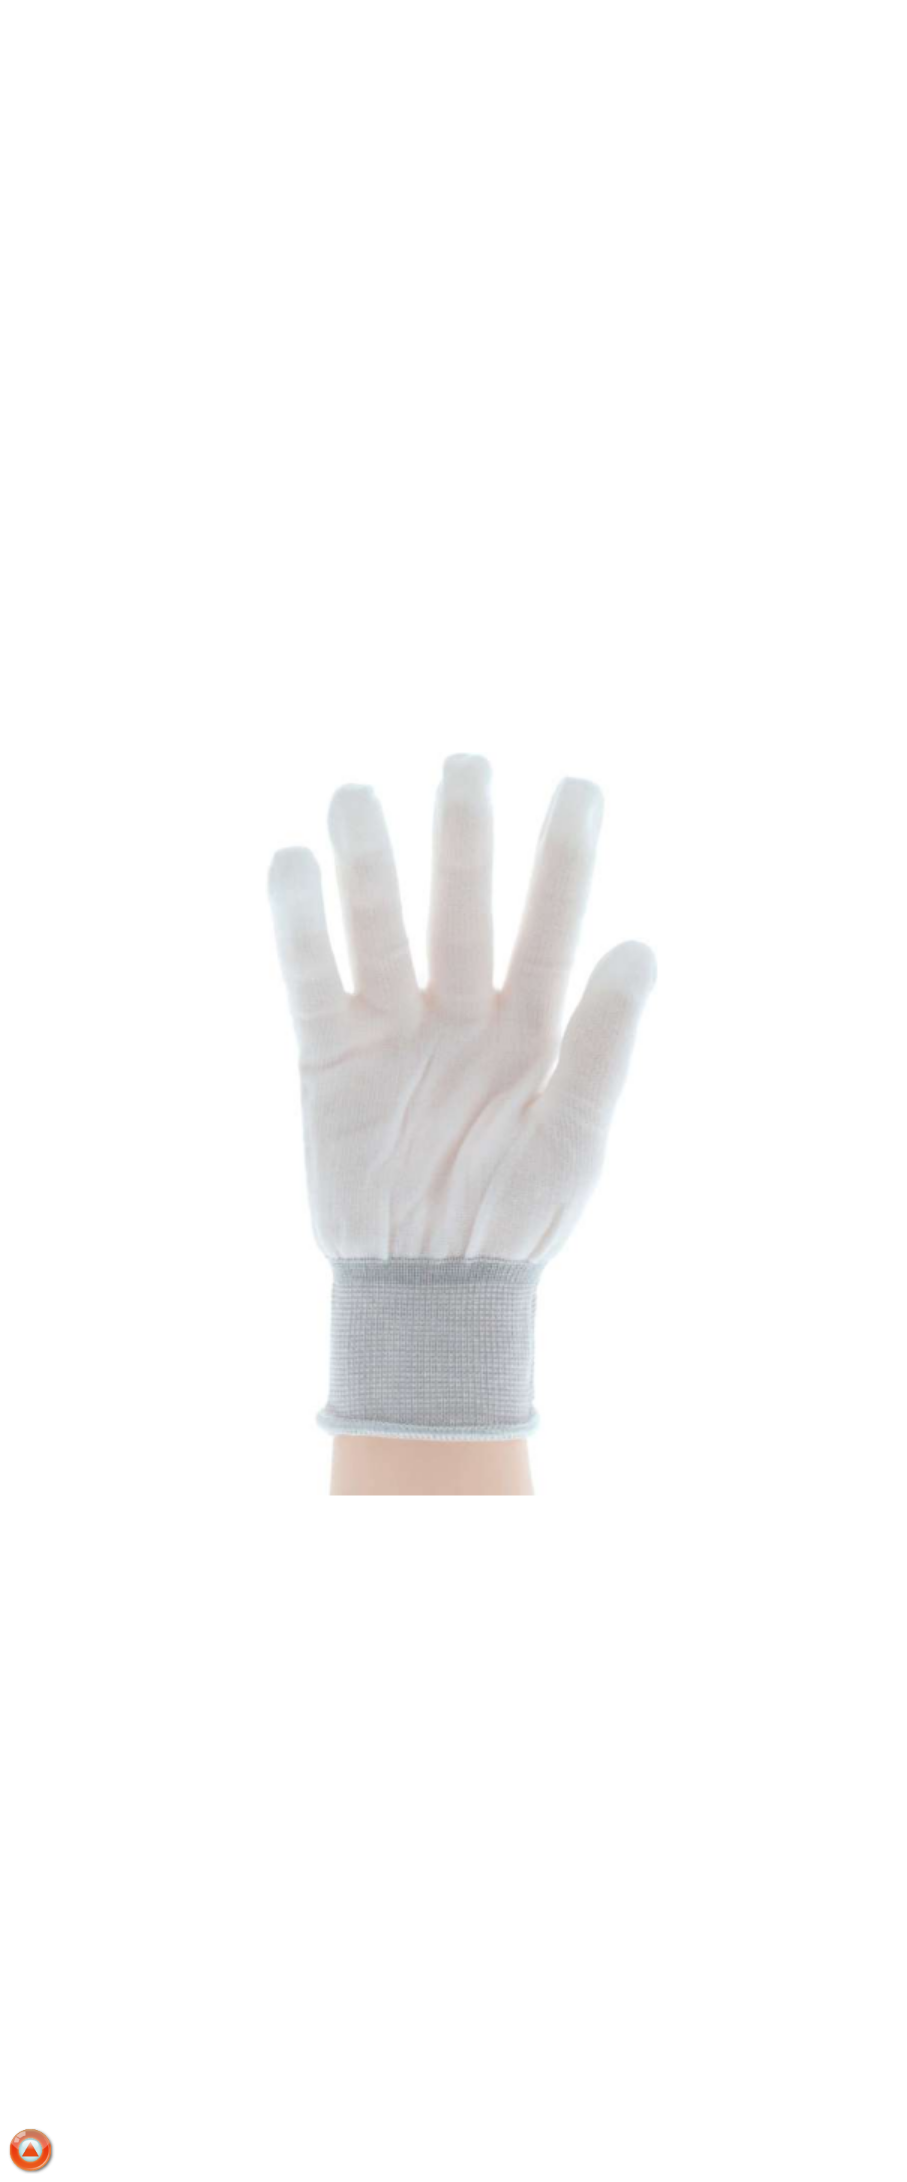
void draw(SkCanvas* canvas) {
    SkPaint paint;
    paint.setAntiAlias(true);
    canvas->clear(0xFFFFFFFF);
    canvas->drawImageRect(SkImages::DeferredFromEncodedData(SkData::MakeFromFileName("img1.png")), SkRect::MakeXYWH(265, 752, 393, 744), SkSamplingOptions());
    canvas->drawImageRect(SkImages::DeferredFromEncodedData(SkData::MakeFromFileName("img2.png")), SkRect::MakeXYWH(8, 2128, 47, 46), SkSamplingOptions());
}
